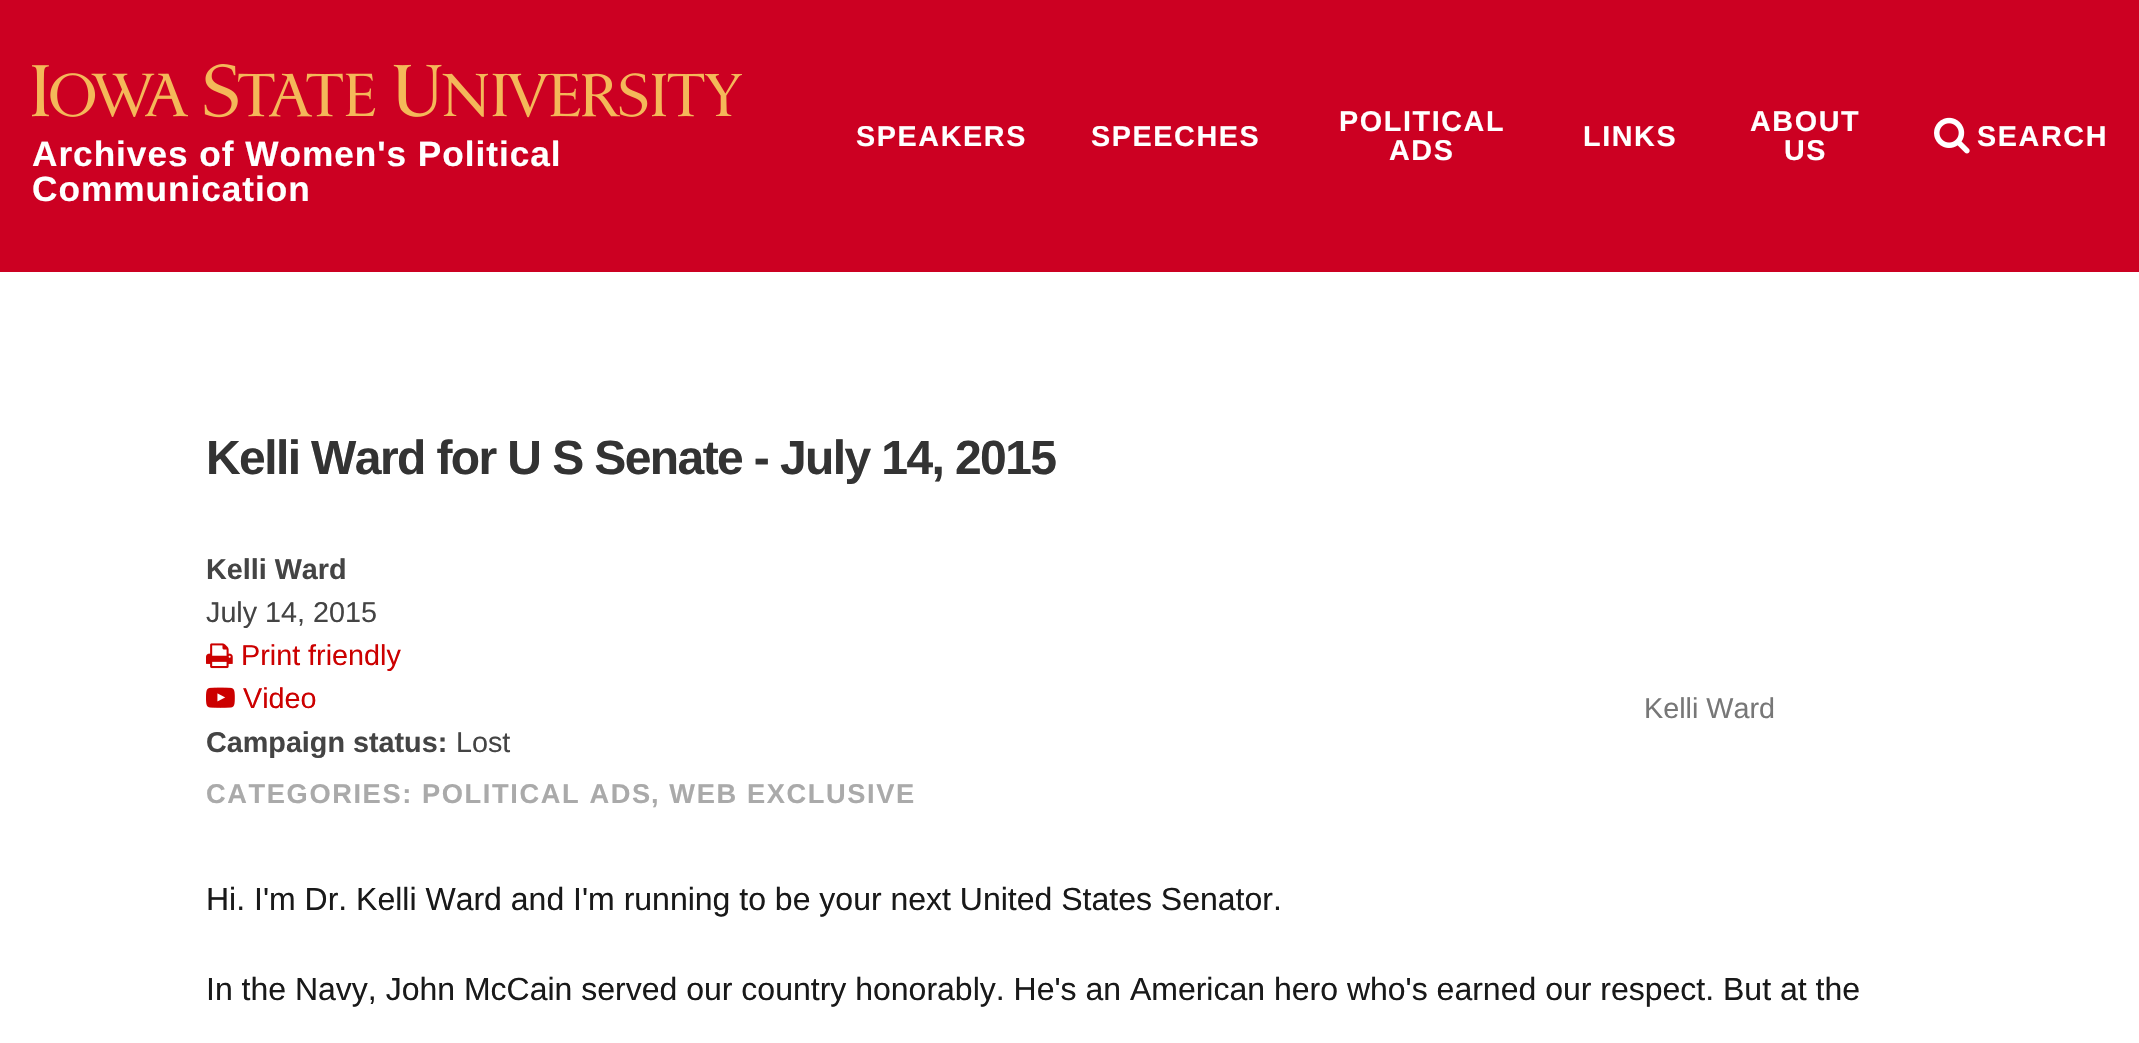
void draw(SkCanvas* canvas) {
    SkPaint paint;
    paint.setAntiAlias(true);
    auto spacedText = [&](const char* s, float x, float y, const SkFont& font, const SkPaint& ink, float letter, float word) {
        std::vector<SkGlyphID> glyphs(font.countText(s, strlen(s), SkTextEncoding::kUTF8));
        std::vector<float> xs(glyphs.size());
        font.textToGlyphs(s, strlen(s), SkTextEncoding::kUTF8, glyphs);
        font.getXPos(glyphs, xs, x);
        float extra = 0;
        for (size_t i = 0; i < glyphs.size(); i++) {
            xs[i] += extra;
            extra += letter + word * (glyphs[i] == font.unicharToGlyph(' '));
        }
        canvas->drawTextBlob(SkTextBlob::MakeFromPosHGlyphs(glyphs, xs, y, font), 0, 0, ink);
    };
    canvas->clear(0xFFFFFFFF);
    paint.setColor(0xFFCC0022);
    canvas->drawRect(SkRect::MakeXYWH(0, 0, 2139, 272), paint);
    SkFont font1(fontMgr->matchFamilyStyle("Liberation Sans", SkFontStyle::Bold()), 28.75f);
    font1.setSubpixel(true);
    paint.setColor(0xFFFFFFFF);
    spacedText("SPEAKERS", 856, 146, font1, paint, 1.6f, 0);
    spacedText("SPEECHES", 1091, 146, font1, paint, 1.6f, 0);
    spacedText("POLITICAL", 1339, 131, font1, paint, 1.6f, 0);
    spacedText("ADS", 1389, 160, font1, paint, 1.6f, 0);
    spacedText("LINKS", 1583, 146, font1, paint, 1.6f, 0);
    spacedText("ABOUT", 1750, 131, font1, paint, 1.6f, 0);
    spacedText("US", 1784, 160, font1, paint, 1.6f, 0);
    canvas->drawImageRect(SkImages::DeferredFromEncodedData(SkData::MakeFromFileName("img1.png")), SkRect::MakeXYWH(1934, 117, 36, 37), SkSamplingOptions());
    spacedText("SEARCH", 1977, 146, font1, paint, 1.6f, 0);
    canvas->drawImageRect(SkImages::DeferredFromEncodedData(SkData::MakeFromFileName("img2.png")), SkRect::MakeXYWH(32, 64, 710, 54), SkSamplingOptions());
    SkFont font2(fontMgr->matchFamilyStyle("Liberation Sans", SkFontStyle::Bold()), 35.25f);
    font2.setSubpixel(true);
    spacedText("Archives of Women's Political", 32, 166, font2, paint, 0.95f, 0);
    spacedText("Communication", 32, 201, font2, paint, 0.95f, 0);
    SkFont font3(fontMgr->matchFamilyStyle("Liberation Sans", SkFontStyle::Bold()), 48);
    font3.setSubpixel(true);
    paint.setColor(0xFF333333);
    spacedText("Kelli Ward for U S Senate - July 14, 2015", 206, 474, font3, paint, -1.6f, 0);
    paint.setColor(0xFF444444);
    canvas->drawString("Kelli Ward", 206, 579, font1, paint);
    SkFont font4(fontMgr->matchFamilyStyle("Liberation Sans", SkFontStyle::Normal()), 28.75f);
    font4.setSubpixel(true);
    canvas->drawString("July 14, 2015", 206, 622, font4, paint);
    canvas->drawImageRect(SkImages::DeferredFromEncodedData(SkData::MakeFromFileName("img3.png")), SkRect::MakeXYWH(206, 643, 27, 26), SkSamplingOptions());
    paint.setColor(0xFFCC0000);
    canvas->drawString("Print friendly", 241, 665, font4, paint);
    canvas->drawImageRect(SkImages::DeferredFromEncodedData(SkData::MakeFromFileName("img4.png")), SkRect::MakeXYWH(206, 687, 29, 21), SkSamplingOptions());
    canvas->drawString("Video", 243, 708, font4, paint);
    paint.setColor(0xFF444444);
    canvas->drawString("Campaign status:", 206, 752, font1, paint);
    canvas->drawString("Lost", 456, 752, font4, paint);
    paint.setColor(0xFF777777);
    canvas->drawString("Kelli Ward", 1644, 718, font4, paint);
    SkFont font5(fontMgr->matchFamilyStyle("Liberation Sans", SkFontStyle::Bold()), 27.25f);
    font5.setSubpixel(true);
    paint.setColor(0xFFAAAAAA);
    spacedText("CATEGORIES: POLITICAL ADS", 206, 803, font5, paint, 1.6f, 0);
    spacedText(", WEB EXCLUSIVE", 651, 803, font5, paint, 1.6f, 0);
    SkFont font6(fontMgr->matchFamilyStyle("Liberation Sans", SkFontStyle::Normal()), 32);
    font6.setSubpixel(true);
    paint.setColor(0xFF191919);
    canvas->drawString("Hi. I'm Dr. Kelli Ward and I'm running to be your next United States Senator.", 206, 910, font6, paint);
    canvas->drawString("In the Navy, John McCain served our country honorably. He's an American hero who's earned our respect. But at the", 206, 1000, font6, paint);
}
